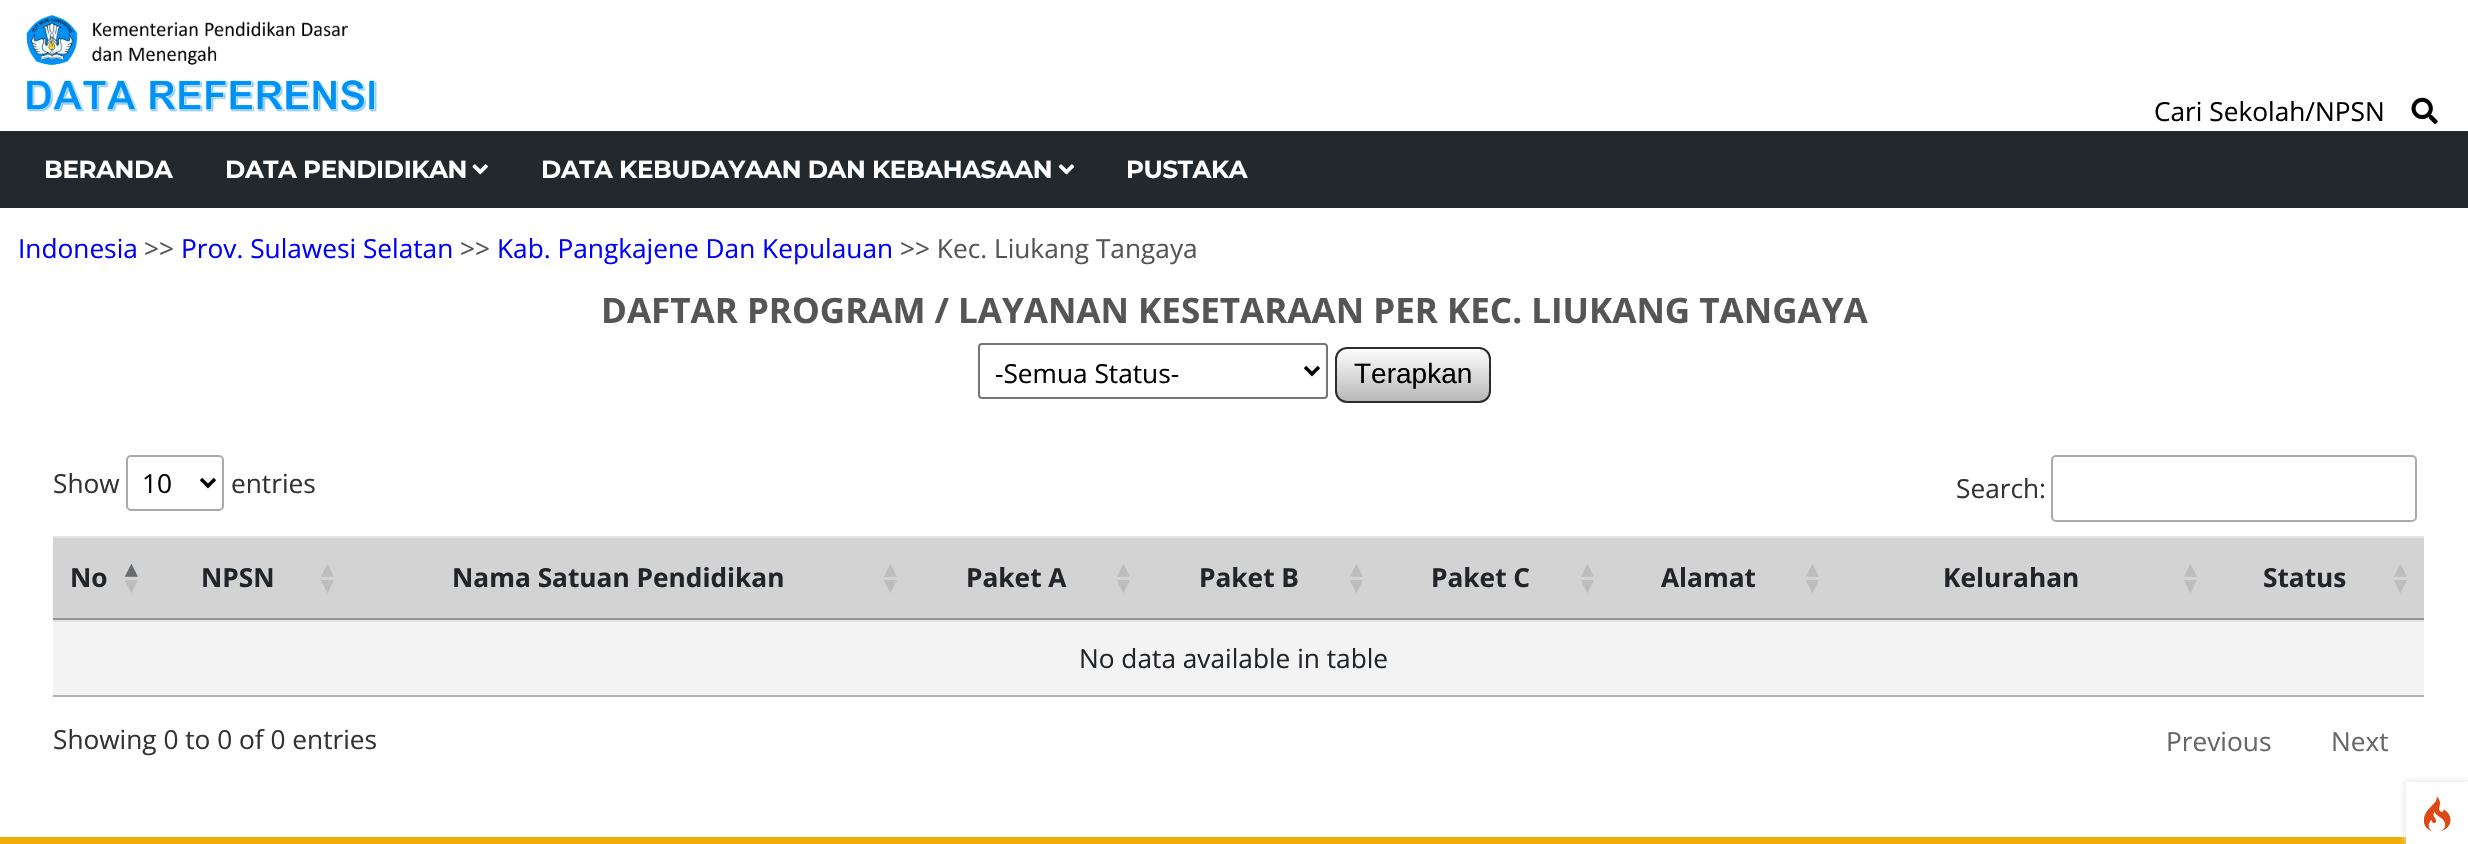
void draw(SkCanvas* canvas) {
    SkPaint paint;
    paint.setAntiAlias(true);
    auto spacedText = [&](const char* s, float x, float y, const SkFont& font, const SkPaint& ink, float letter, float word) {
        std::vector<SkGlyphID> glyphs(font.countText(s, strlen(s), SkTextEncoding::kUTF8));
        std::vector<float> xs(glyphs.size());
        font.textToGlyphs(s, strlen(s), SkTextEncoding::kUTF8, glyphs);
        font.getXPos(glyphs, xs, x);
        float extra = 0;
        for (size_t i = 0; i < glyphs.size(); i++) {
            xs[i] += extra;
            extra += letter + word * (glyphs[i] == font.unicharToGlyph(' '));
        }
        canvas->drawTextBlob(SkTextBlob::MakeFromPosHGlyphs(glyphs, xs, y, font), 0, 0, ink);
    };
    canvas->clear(0xFFFFFFFF);
    paint.setColor(0xFF23282D);
    canvas->drawRect(SkRect::MakeXYWH(0, 131, 2468, 77), paint);
    canvas->drawImageRect(SkImages::DeferredFromEncodedData(SkData::MakeFromFileName("img1.png")), SkRect::MakeXYWH(26, 15, 351, 97), SkSamplingOptions());
    SkFont font1(fontMgr->matchFamilyStyle("Open Sans", SkFontStyle::Normal()), 26.25f);
    font1.setSubpixel(true);
    paint.setColor(0xFF000000);
    canvas->drawString("Cari Sekolah/NPSN", 2154, 121, font1, paint);
    canvas->drawImageRect(SkImages::DeferredFromEncodedData(SkData::MakeFromFileName("img2.png")), SkRect::MakeXYWH(2411, 97, 27, 27), SkSamplingOptions());
    SkFont font2(fontMgr->matchFamilyStyle("Montserrat", SkFontStyle::Bold()), 24.5f);
    font2.setSubpixel(true);
    paint.setColor(0xFFFFFFFF);
    spacedText("BERANDA", 44, 178, font2, paint, -0.35f, 0);
    spacedText("DATA PENDIDIKAN", 225, 178, font2, paint, -0.35f, 0);
    canvas->drawImageRect(SkImages::DeferredFromEncodedData(SkData::MakeFromFileName("img3.png")), SkRect::MakeXYWH(472, 164, 16, 11), SkSamplingOptions());
    spacedText("DATA KEBUDAYAAN DAN KEBAHASAAN", 541, 178, font2, paint, -0.35f, 0);
    canvas->drawImageRect(SkImages::DeferredFromEncodedData(SkData::MakeFromFileName("img4.png")), SkRect::MakeXYWH(1058, 164, 17, 11), SkSamplingOptions());
    spacedText("PUSTAKA", 1126, 178, font2, paint, -0.35f, 0);
    paint.setColor(0xFF0000FF);
    canvas->drawString("Indonesia", 18, 258, font1, paint);
    paint.setColor(0xFF555555);
    canvas->drawString(">>", 144, 258, font1, paint);
    paint.setColor(0xFF0000FF);
    canvas->drawString("Prov. Sulawesi Selatan", 181, 258, font1, paint);
    paint.setColor(0xFF555555);
    canvas->drawString(">>", 460, 258, font1, paint);
    paint.setColor(0xFF0000FF);
    canvas->drawString("Kab. Pangkajene Dan Kepulauan", 497, 258, font1, paint);
    paint.setColor(0xFF555555);
    canvas->drawString(">> Kec. Liukang Tangaya", 900, 258, font1, paint);
    SkFont font3(fontMgr->matchFamilyStyle("Open Sans", SkFontStyle::Bold()), 35);
    font3.setSubpixel(true);
    canvas->drawString("DAFTAR PROGRAM / LAYANAN KESETARAAN PER KEC. LIUKANG TANGAYA", 601, 323, font3, paint);
    paint.setStyle(SkPaint::kStroke_Style);
    paint.setStrokeWidth(2);
    paint.setColor(0xFF767676);
    canvas->drawRoundRect(SkRect::MakeXYWH(979, 344, 348, 54), 3, 3, paint);
    paint.setStrokeWidth(3.5f);
    paint.setColor(0xFF000000);
    canvas->drawPath(SkPathBuilder().moveTo(1305, 367).lineTo(1312, 374).lineTo(1319, 367).detach(), paint);
    paint.setStyle(SkPaint::kFill_Style);
    canvas->drawString("-Semua Status-", 995, 383, font1, paint);
    canvas->save();
    canvas->clipPath(SkPathBuilder().moveTo(1347, 347).lineTo(1479, 347).cubicTo(1485.5f, 347, 1491, 352.5f, 1491, 359).lineTo(1491, 391).cubicTo(1491, 397.5f, 1485.5f, 403, 1479, 403).lineTo(1347, 403).cubicTo(1340.5f, 403, 1335, 397.5f, 1335, 391).lineTo(1335, 359).cubicTo(1335, 352.5f, 1340.5f, 347, 1347, 347).close().detach(), true);
    {
        const SkColor colors[] = {0xFFFFFFFF, 0xFFB8B8B8};
        const float stops[] = {0, 1};
        const SkPoint ends[] = {{1413, 348}, {1413, 401}};
        paint.setShader(SkGradientShader::MakeLinear(ends, colors, stops, 2, SkTileMode::kClamp));
        paint.setAlpha(255);
    }
    canvas->drawRect(SkRect::MakeXYWH(1335, 348, 156, 53), paint);
    canvas->restore();
    paint.setStyle(SkPaint::kStroke_Style);
    paint.setStrokeWidth(2);
    paint.setShader(nullptr);
    paint.setColor(0xFF2A2D30);
    canvas->drawRoundRect(SkRect::MakeXYWH(1336, 348, 154, 54), 11, 11, paint);
    SkFont font4(fontMgr->matchFamilyStyle("Liberation Sans", SkFontStyle::Normal()), 28);
    font4.setSubpixel(true);
    paint.setStyle(SkPaint::kFill_Style);
    paint.setColor(0xFF000000);
    canvas->drawString("Terapkan", 1354, 383, font4, paint);
    paint.setColor(0xFF333333);
    canvas->drawString("Show", 53, 493, font1, paint);
    paint.setStyle(SkPaint::kStroke_Style);
    paint.setColor(0xFFAAAAAA);
    canvas->drawRoundRect(SkRect::MakeXYWH(127, 456, 96, 54), 4, 4, paint);
    paint.setStrokeWidth(3.5f);
    paint.setColor(0xFF000000);
    canvas->drawPath(SkPathBuilder().moveTo(201, 479).lineTo(208, 486).lineTo(215, 479).detach(), paint);
    paint.setStyle(SkPaint::kFill_Style);
    canvas->drawString("10", 142, 493, font1, paint);
    paint.setColor(0xFF333333);
    canvas->drawString("entries", 231, 493, font1, paint);
    canvas->drawString("Search:", 1956, 498, font1, paint);
    paint.setStyle(SkPaint::kStroke_Style);
    paint.setStrokeWidth(2);
    paint.setColor(0xFFAAAAAA);
    canvas->drawRoundRect(SkRect::MakeXYWH(2052, 456, 364, 65), 4, 4, paint);
    paint.setStyle(SkPaint::kFill_Style);
    paint.setColor(0xFFB3B3B3);
    canvas->drawRect(SkRect::MakeXYWH(53, 695, 2371, 2), paint);
    paint.setColor(0xFFD3D3D3);
    canvas->drawRect(SkRect::MakeXYWH(53, 538, 2371, 80), paint);
    paint.setColor(0xFFDEE2E6);
    canvas->drawRect(SkRect::MakeXYWH(53, 536, 2371, 2), paint);
    paint.setColor(0xFF949494);
    canvas->drawRect(SkRect::MakeXYWH(53, 618, 2371, 2), paint);
    SkFont font5(fontMgr->matchFamilyStyle("Open Sans", SkFontStyle::Bold()), 26.25f);
    font5.setSubpixel(true);
    paint.setColor(0xFF212529);
    canvas->drawString("No", 70, 587, font5, paint);
    SkFont font6(fontMgr->matchFamilyStyle("DejaVu Sans", SkFontStyle::Bold()), 24);
    font6.setSubpixel(true);
    paint.setColor(0xFF686B6D);
    canvas->drawString("▴", 125, 577, font6, paint);
    paint.setColor(0xFFBDBDBE);
    canvas->drawString("▾", 125, 593, font6, paint);
    paint.setColor(0xFF212529);
    canvas->drawString("NPSN", 201, 587, font5, paint);
    paint.setColor(0xFFBDBDBE);
    canvas->drawString("▴", 321, 577, font6, paint);
    canvas->drawString("▾", 321, 593, font6, paint);
    paint.setColor(0xFF212529);
    canvas->drawString("Nama Satuan Pendidikan", 452, 587, font5, paint);
    paint.setColor(0xFFBDBDBE);
    canvas->drawString("▴", 884, 577, font6, paint);
    canvas->drawString("▾", 884, 593, font6, paint);
    paint.setColor(0xFF212529);
    canvas->drawString("Paket A", 966, 587, font5, paint);
    paint.setColor(0xFFBDBDBE);
    canvas->drawString("▴", 1117, 577, font6, paint);
    canvas->drawString("▾", 1117, 593, font6, paint);
    paint.setColor(0xFF212529);
    canvas->drawString("Paket B", 1199, 587, font5, paint);
    paint.setColor(0xFFBDBDBE);
    canvas->drawString("▴", 1350, 577, font6, paint);
    canvas->drawString("▾", 1350, 593, font6, paint);
    paint.setColor(0xFF212529);
    canvas->drawString("Paket C", 1431, 587, font5, paint);
    paint.setColor(0xFFBDBDBE);
    canvas->drawString("▴", 1581, 577, font6, paint);
    canvas->drawString("▾", 1581, 593, font6, paint);
    paint.setColor(0xFF212529);
    canvas->drawString("Alamat", 1661, 587, font5, paint);
    paint.setColor(0xFFBDBDBE);
    canvas->drawString("▴", 1806, 577, font6, paint);
    canvas->drawString("▾", 1806, 593, font6, paint);
    paint.setColor(0xFF212529);
    canvas->drawString("Kelurahan", 1943, 587, font5, paint);
    paint.setColor(0xFFBDBDBE);
    canvas->drawString("▴", 2184, 577, font6, paint);
    canvas->drawString("▾", 2184, 593, font6, paint);
    paint.setColor(0xFF212529);
    canvas->drawString("Status", 2263, 587, font5, paint);
    paint.setColor(0xFFBDBDBE);
    canvas->drawString("▴", 2394, 577, font6, paint);
    canvas->drawString("▾", 2394, 593, font6, paint);
    paint.setColor(0xFFF3F3F3);
    canvas->drawRect(SkRect::MakeXYWH(53, 622, 2371, 73), paint);
    paint.setColor(0xFFDEE2E6);
    canvas->drawRect(SkRect::MakeXYWH(53, 620, 2371, 2), paint);
    paint.setColor(0xFF212529);
    canvas->drawString("No data available in table", 1079, 668, font1, paint);
    paint.setColor(0xFF333333);
    canvas->drawString("Showing 0 to 0 of 0 entries", 53, 749, font1, paint);
    paint.setColor(0xFF666666);
    canvas->drawString("Previous", 2166, 751, font1, paint);
    canvas->drawString("Next", 2331, 751, font1, paint);
    paint.setColor(0xFFF0AD06);
    canvas->drawRect(SkRect::MakeXYWH(0, 837, 2406, 7), paint);
    paint.setColor(0xFFDFDFDF);
    paint.setMaskFilter(SkMaskFilter::MakeBlur(kNormal_SkBlurStyle, 3.5f));
    canvas->drawRect(SkRect::MakeXYWH(2406, 782, 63, 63), paint);
    paint.setMaskFilter(nullptr);
    paint.setColor(0xFFFFFFFF);
    canvas->drawRect(SkRect::MakeXYWH(2406, 782, 62, 62), paint);
    canvas->drawImageRect(SkImages::DeferredFromEncodedData(SkData::MakeFromFileName("img5.png")), SkRect::MakeXYWH(2424, 796, 27, 35), SkSamplingOptions());
}
